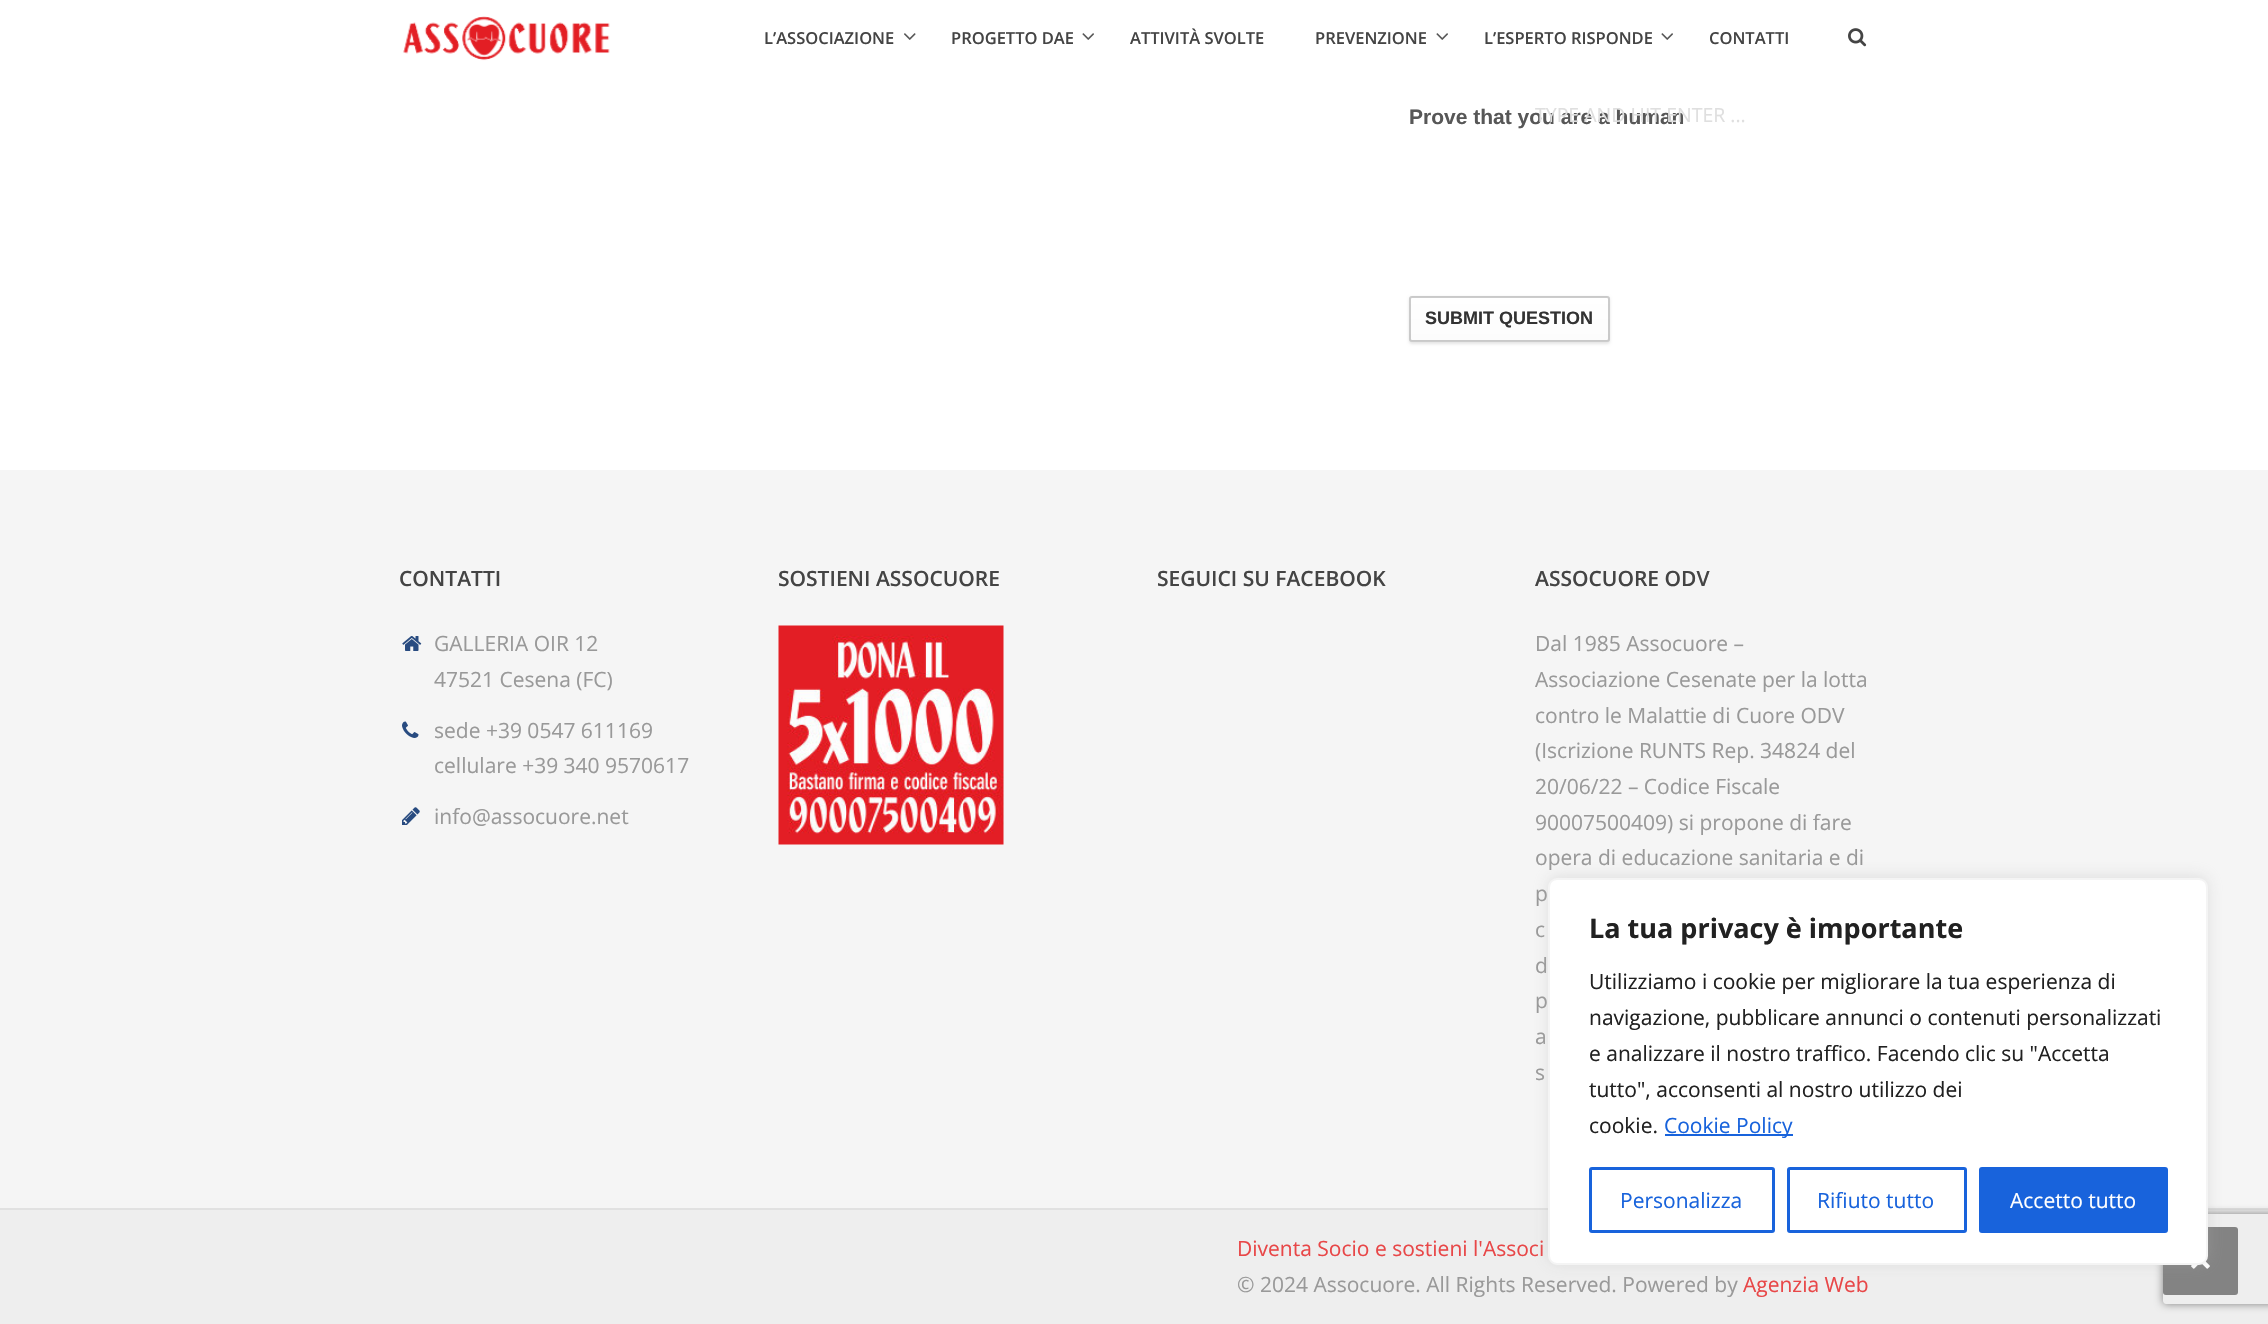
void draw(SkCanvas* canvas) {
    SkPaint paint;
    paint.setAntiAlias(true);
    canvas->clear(0xFFFFFFFF);
    canvas->drawImageRect(SkImages::DeferredFromEncodedData(SkData::MakeFromFileName("img1.png")), SkRect::MakeXYWH(403, 16, 207, 45), SkSamplingOptions());
    SkFont font1(fontMgr->matchFamilyStyle("Open Sans", SkFontStyle(600, SkFontStyle::kNormal_Width, SkFontStyle::kUpright_Slant)), 16.5f);
    font1.setSubpixel(true);
    paint.setColor(0xFF444444);
    canvas->drawString("L’ASSOCIAZIONE", 764, 44, font1, paint);
    canvas->drawImageRect(SkImages::DeferredFromEncodedData(SkData::MakeFromFileName("img2.png")), SkRect::MakeXYWH(904, 33, 12, 7), SkSamplingOptions());
    canvas->drawString("PROGETTO DAE", 951, 44, font1, paint);
    canvas->drawImageRect(SkImages::DeferredFromEncodedData(SkData::MakeFromFileName("img3.png")), SkRect::MakeXYWH(1082, 33, 12, 7), SkSamplingOptions());
    canvas->drawString("ATTIVITÀ SVOLTE", 1130, 44, font1, paint);
    canvas->drawString("PREVENZIONE", 1315, 44, font1, paint);
    canvas->drawImageRect(SkImages::DeferredFromEncodedData(SkData::MakeFromFileName("img3.png")), SkRect::MakeXYWH(1436, 33, 12, 7), SkSamplingOptions());
    canvas->drawString("L’ESPERTO RISPONDE", 1484, 44, font1, paint);
    canvas->drawImageRect(SkImages::DeferredFromEncodedData(SkData::MakeFromFileName("img3.png")), SkRect::MakeXYWH(1661, 33, 12, 7), SkSamplingOptions());
    canvas->drawString("CONTATTI", 1709, 44, font1, paint);
    canvas->drawImageRect(SkImages::DeferredFromEncodedData(SkData::MakeFromFileName("img4.png")), SkRect::MakeXYWH(1848, 28, 19, 19), SkSamplingOptions());
    SkFont font2(fontMgr->matchFamilyStyle("Liberation Sans", SkFontStyle::Bold()), 21);
    font2.setSubpixel(true);
    paint.setColor(0xFF575757);
    canvas->drawString("Prove that you are a human", 1409, 124, font2, paint);
    SkFont font3(fontMgr->matchFamilyStyle("Open Sans", SkFontStyle::Normal()), 19.5f);
    font3.setSubpixel(true);
    paint.setColor(0xFFDFDFDF);
    canvas->drawString("TYPE AND HIT ENTER ...", 1535, 122, font3, paint);
    paint.setColor(0x1A000000);
    paint.setMaskFilter(SkMaskFilter::MakeBlur(kNormal_SkBlurStyle, 1.5f));
    canvas->drawRoundRect(SkRect::MakeXYWH(1409, 297, 201, 47), 3, 3, paint);
    paint.setMaskFilter(nullptr);
    canvas->save();
    canvas->clipPath(SkPathBuilder().moveTo(1412, 296).lineTo(1607, 296).cubicTo(1608.5f, 296, 1610, 297.5f, 1610, 299).lineTo(1610, 339).cubicTo(1610, 340.5f, 1608.5f, 342, 1607, 342).lineTo(1412, 342).cubicTo(1410.5f, 342, 1409, 340.5f, 1409, 339).lineTo(1409, 299).cubicTo(1409, 297.5f, 1410.5f, 296, 1412, 296).close().detach(), true);
    {
        const SkColor colors[] = {0xFFFFFFFF, 0xFFFCFCFC};
        const float stops[] = {0, 1};
        const SkPoint ends[] = {{1509, 254}, {1509, 297}};
        paint.setShader(SkGradientShader::MakeLinear(ends, colors, stops, 2, SkTileMode::kClamp));
        paint.setAlpha(255);
    }
    canvas->drawRect(SkRect::MakeXYWH(1409, 296, 201, 1), paint);
    {
        const SkColor colors[] = {0xFFFFFFFF, 0xFFFCFCFC};
        const float stops[] = {0, 1};
        const SkPoint ends[] = {{1509, 297}, {1509, 341}};
        paint.setShader(SkGradientShader::MakeLinear(ends, colors, stops, 2, SkTileMode::kClamp));
        paint.setAlpha(255);
    }
    canvas->drawRect(SkRect::MakeXYWH(1409, 297, 201, 44), paint);
    {
        const SkColor colors[] = {0xFFFFFFFF, 0xFFFCFCFC};
        const float stops[] = {0, 1};
        const SkPoint ends[] = {{1509, 341}, {1509, 384}};
        paint.setShader(SkGradientShader::MakeLinear(ends, colors, stops, 2, SkTileMode::kClamp));
        paint.setAlpha(255);
    }
    canvas->drawRect(SkRect::MakeXYWH(1409, 341, 201, 1), paint);
    canvas->restore();
    paint.setStyle(SkPaint::kStroke_Style);
    paint.setStrokeWidth(2);
    paint.setShader(nullptr);
    paint.setColor(0x33000000);
    canvas->drawRoundRect(SkRect::MakeXYWH(1410, 297, 199, 44), 2, 2, paint);
    SkFont font4(fontMgr->matchFamilyStyle("Liberation Sans", SkFontStyle::Bold()), 18);
    font4.setSubpixel(true);
    paint.setStyle(SkPaint::kFill_Style);
    paint.setColor(0xFF333333);
    canvas->drawString("SUBMIT QUESTION", 1425, 324, font4, paint);
    paint.setColor(0xFFF5F5F5);
    canvas->drawRect(SkRect::MakeXYWH(0, 470, 2268, 738), paint);
    SkFont font5(fontMgr->matchFamilyStyle("Open Sans", SkFontStyle(600, SkFontStyle::kNormal_Width, SkFontStyle::kUpright_Slant)), 21);
    font5.setSubpixel(true);
    paint.setColor(0xFF444444);
    canvas->drawString("CONTATTI", 399, 586, font5, paint);
    canvas->drawImageRect(SkImages::DeferredFromEncodedData(SkData::MakeFromFileName("img5.png")), SkRect::MakeXYWH(402, 636, 20, 15), SkSamplingOptions());
    SkFont font6(fontMgr->matchFamilyStyle("Open Sans", SkFontStyle::Normal()), 21);
    font6.setSubpixel(true);
    paint.setColor(0xFF999999);
    canvas->drawString("GALLERIA OIR 12", 434, 651, font6, paint);
    canvas->drawString("47521 Cesena (FC)", 434, 687, font6, paint);
    canvas->drawImageRect(SkImages::DeferredFromEncodedData(SkData::MakeFromFileName("img6.png")), SkRect::MakeXYWH(402, 721, 17, 17), SkSamplingOptions());
    canvas->drawString("sede +39 0547 611169", 434, 738, font6, paint);
    canvas->drawString("cellulare +39 340 9570617", 434, 773, font6, paint);
    canvas->drawImageRect(SkImages::DeferredFromEncodedData(SkData::MakeFromFileName("img7.png")), SkRect::MakeXYWH(402, 807, 18, 18), SkSamplingOptions());
    canvas->drawString("info@assocuore.net", 434, 824, font6, paint);
    paint.setColor(0xFF444444);
    canvas->drawString("SOSTIENI ASSOCUORE", 778, 586, font5, paint);
    canvas->drawImageRect(SkImages::DeferredFromEncodedData(SkData::MakeFromFileName("img8.png")), SkRect::MakeXYWH(778, 625, 226, 220), SkSamplingOptions());
    canvas->drawString("SEGUICI SU FACEBOOK", 1157, 586, font5, paint);
    canvas->drawString("ASSOCUORE ODV", 1535, 586, font5, paint);
    paint.setColor(0xFF999999);
    canvas->drawString("Dal 1985 Assocuore –", 1535, 651, font6, paint);
    canvas->drawString("Associazione Cesenate per la lotta", 1535, 687, font6, paint);
    canvas->drawString("contro le Malattie di Cuore ODV", 1535, 723, font6, paint);
    canvas->drawString("(Iscrizione RUNTS Rep. 34824 del", 1535, 758, font6, paint);
    canvas->drawString("20/06/22 – Codice Fiscale", 1535, 794, font6, paint);
    canvas->drawString("90007500409) si propone di fare", 1535, 830, font6, paint);
    canvas->drawString("opera di educazione sanitaria e di", 1535, 865, font6, paint);
    canvas->drawString("p", 1535, 901, font6, paint);
    canvas->drawString("c", 1535, 937, font6, paint);
    canvas->drawString("d", 1535, 973, font6, paint);
    canvas->drawString("p", 1535, 1008, font6, paint);
    canvas->drawString("a", 1535, 1044, font6, paint);
    canvas->drawString("s", 1535, 1080, font6, paint);
    paint.setColor(0xFFEEEEEE);
    canvas->drawRect(SkRect::MakeXYWH(0, 1210, 2268, 114), paint);
    paint.setColor(0xFFE1E1E1);
    canvas->drawRect(SkRect::MakeXYWH(0, 1208, 2268, 2), paint);
    paint.setColor(0xFFE84748);
    canvas->drawString("Diventa Socio e sostieni l'Associ", 1237, 1256, font6, paint);
    paint.setColor(0xFF999999);
    canvas->drawString("© 2024 Assocuore. All Rights Reserved. Powered by", 1237, 1292, font6, paint);
    paint.setColor(0xFFE84748);
    canvas->drawString("Agenzia Web", 1743, 1292, font6, paint);
    canvas->save();
    canvas->clipPath(SkPathBuilder(SkPathFillType::kEvenOdd).moveTo(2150, 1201).lineTo(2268, 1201).lineTo(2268, 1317).lineTo(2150, 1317).close().moveTo(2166, 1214).lineTo(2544, 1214).cubicTo(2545.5f, 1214, 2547, 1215.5f, 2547, 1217).lineTo(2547, 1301).cubicTo(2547, 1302.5f, 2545.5f, 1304, 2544, 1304).lineTo(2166, 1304).cubicTo(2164.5f, 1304, 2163, 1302.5f, 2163, 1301).lineTo(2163, 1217).cubicTo(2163, 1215.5f, 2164.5f, 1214, 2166, 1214).close().detach(), true);
    paint.setColor(0xFF808080);
    paint.setMaskFilter(SkMaskFilter::MakeBlur(kNormal_SkBlurStyle, 4));
    canvas->drawRoundRect(SkRect::MakeXYWH(2163, 1214, 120, 90), 3, 3, paint);
    paint.setMaskFilter(nullptr);
    canvas->restore();
    paint.setColor(0xFF838383);
    canvas->drawRoundRect(SkRect::MakeXYWH(2163, 1227, 75, 68), 3, 3, paint);
    canvas->drawImageRect(SkImages::DeferredFromEncodedData(SkData::MakeFromFileName("img9.png")), SkRect::MakeXYWH(2191, 1261, 19, 8), SkSamplingOptions());
    paint.setColor(0x4DACABAB);
    paint.setMaskFilter(SkMaskFilter::MakeBlur(kNormal_SkBlurStyle, 7.5f));
    canvas->drawRoundRect(SkRect::MakeXYWH(1548, 876, 660, 387), 9, 9, paint);
    paint.setMaskFilter(nullptr);
    paint.setColor(0xFFFFFFFF);
    canvas->drawRoundRect(SkRect::MakeXYWH(1549, 879, 658, 385), 8, 8, paint);
    paint.setStyle(SkPaint::kStroke_Style);
    paint.setColor(0xFFF4F4F4);
    canvas->drawRoundRect(SkRect::MakeXYWH(1549, 879, 658, 385), 8, 8, paint);
    SkFont font7(fontMgr->matchFamilyStyle("Open Sans", SkFontStyle::Bold()), 27);
    font7.setSubpixel(true);
    paint.setStyle(SkPaint::kFill_Style);
    paint.setColor(0xFF212121);
    canvas->drawString("La tua privacy è importante", 1589, 938, font7, paint);
    canvas->drawString("Utilizziamo i cookie per migliorare la tua esperienza di", 1589, 989, font6, paint);
    canvas->drawString("navigazione, pubblicare annunci o contenuti personalizzati", 1589, 1025, font6, paint);
    canvas->drawString("e analizzare il nostro traffico. Facendo clic su \"Accetta", 1589, 1061, font6, paint);
    canvas->drawString("tutto\", acconsenti al nostro utilizzo dei", 1589, 1097, font6, paint);
    canvas->drawString("cookie.", 1589, 1133, font6, paint);
    paint.setColor(0xFF1863DC);
    canvas->drawRect(SkRect::MakeXYWH(1665, 1134, 128, 2), paint);
    canvas->drawString("Cookie Policy", 1664, 1133, font6, paint);
    paint.setStyle(SkPaint::kStroke_Style);
    paint.setStrokeWidth(3);
    canvas->drawRoundRect(SkRect::MakeXYWH(1590.5f, 1168.5f, 183, 63), 1.5f, 1.5f, paint);
    paint.setStyle(SkPaint::kFill_Style);
    canvas->drawString("Personalizza", 1620, 1208, font6, paint);
    paint.setStyle(SkPaint::kStroke_Style);
    canvas->drawRoundRect(SkRect::MakeXYWH(1788.5f, 1168.5f, 177, 63), 1.5f, 1.5f, paint);
    paint.setStyle(SkPaint::kFill_Style);
    canvas->drawString("Rifiuto tutto", 1817, 1208, font6, paint);
    canvas->drawRoundRect(SkRect::MakeXYWH(1980.5f, 1168.5f, 186, 63), 1.5f, 1.5f, paint);
    paint.setStyle(SkPaint::kStroke_Style);
    canvas->drawRoundRect(SkRect::MakeXYWH(1980.5f, 1168.5f, 186, 63), 1.5f, 1.5f, paint);
    paint.setStyle(SkPaint::kFill_Style);
    paint.setColor(0xFFFFFFFF);
    canvas->drawString("Accetto tutto", 2010, 1208, font6, paint);
}
